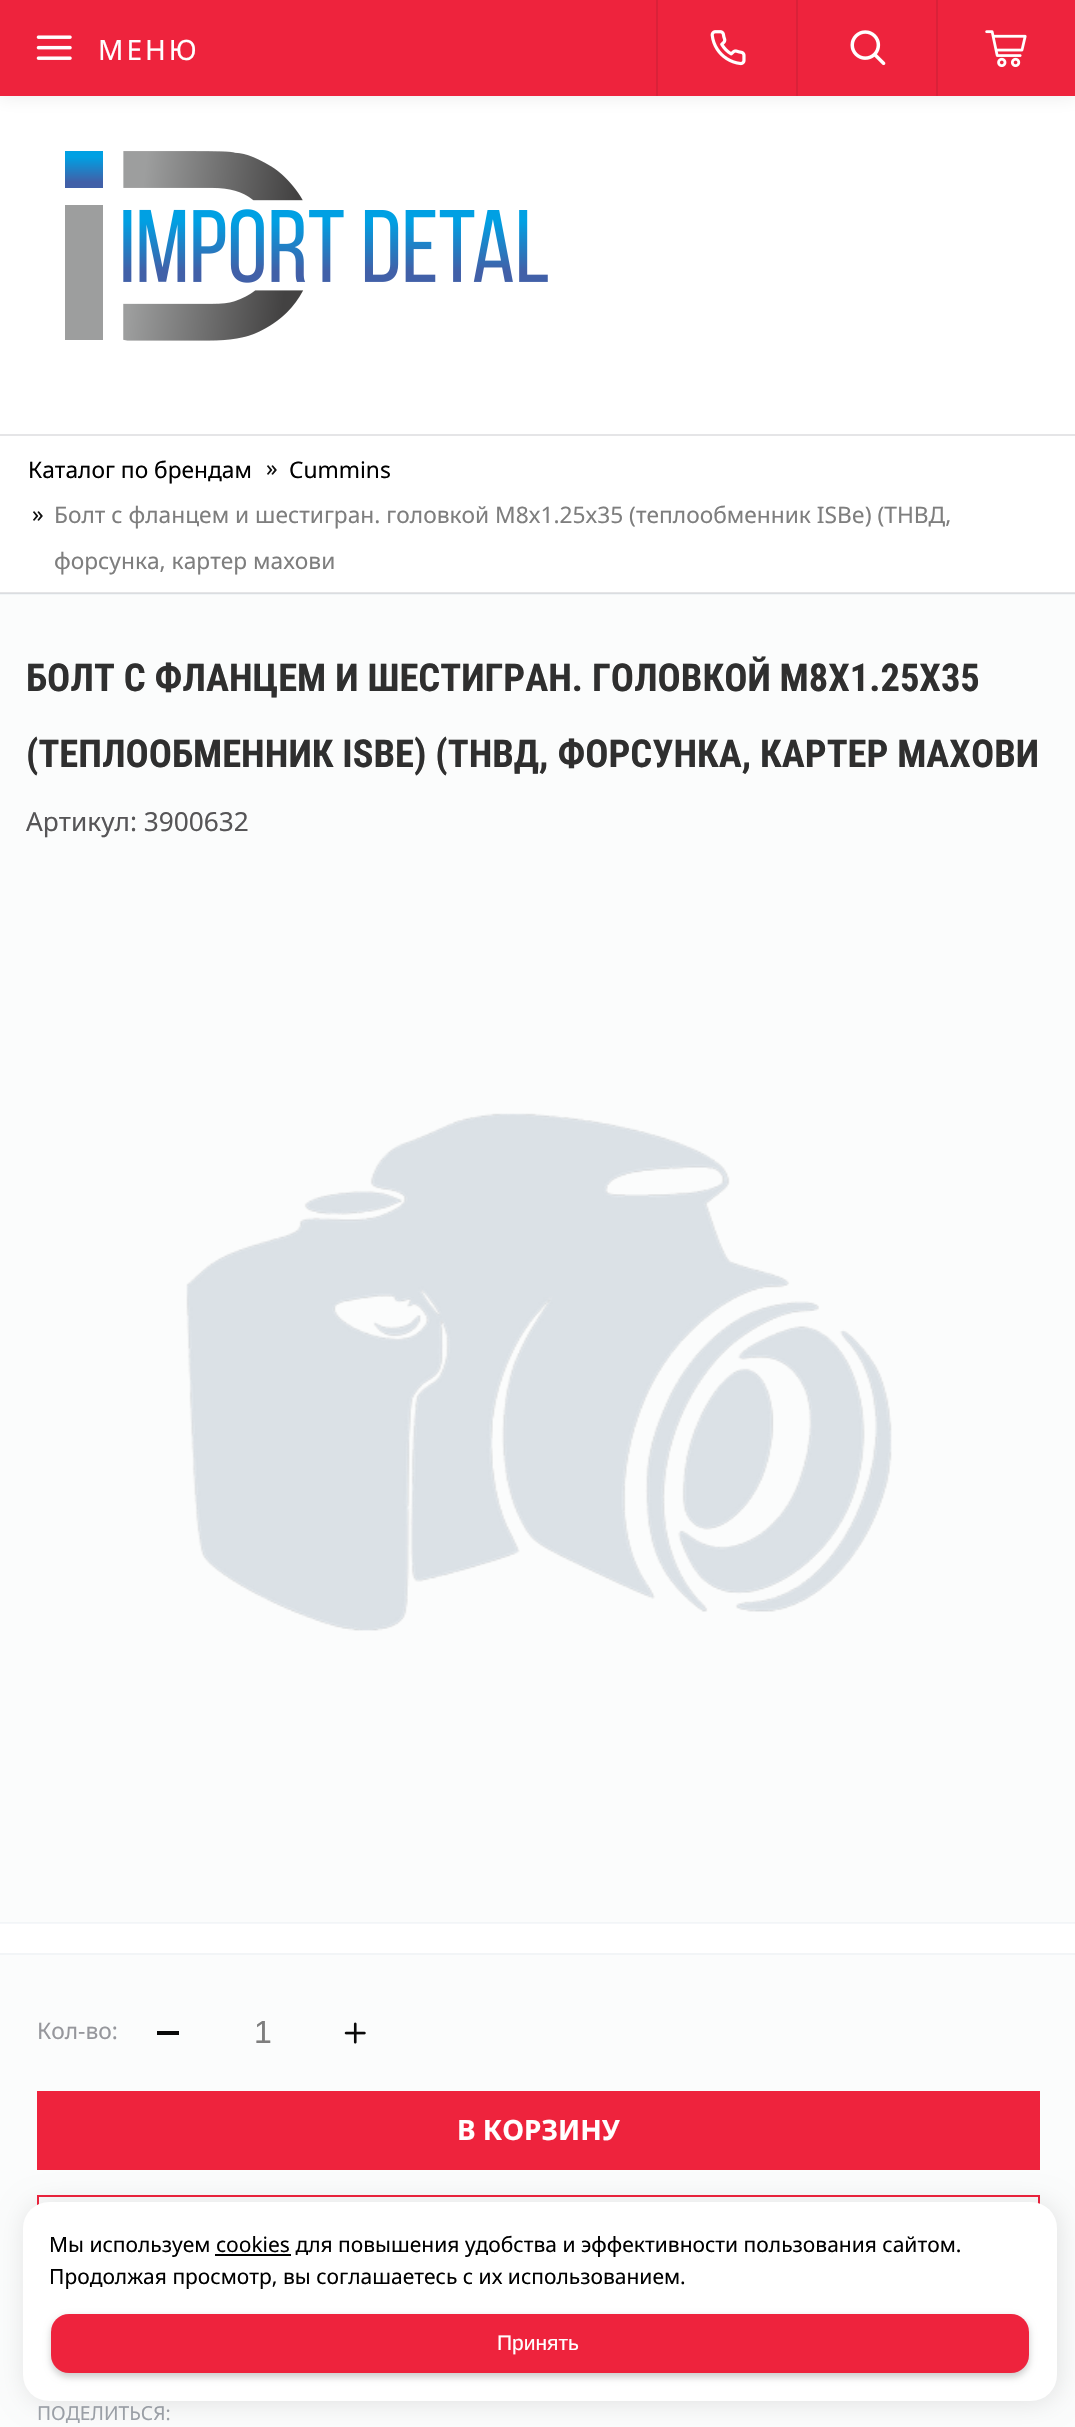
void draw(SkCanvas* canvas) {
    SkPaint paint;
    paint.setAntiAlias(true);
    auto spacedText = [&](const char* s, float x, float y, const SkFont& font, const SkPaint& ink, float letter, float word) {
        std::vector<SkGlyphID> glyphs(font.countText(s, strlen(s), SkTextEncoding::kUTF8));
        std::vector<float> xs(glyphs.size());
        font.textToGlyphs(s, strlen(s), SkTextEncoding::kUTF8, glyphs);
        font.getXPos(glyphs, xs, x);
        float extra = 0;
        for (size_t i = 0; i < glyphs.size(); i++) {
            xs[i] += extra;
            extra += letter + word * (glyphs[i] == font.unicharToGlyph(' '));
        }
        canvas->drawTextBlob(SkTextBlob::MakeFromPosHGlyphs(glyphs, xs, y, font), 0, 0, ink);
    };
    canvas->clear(0xFFFFFFFF);
    paint.setColor(0xFFE5E5E7);
    canvas->drawRect(SkRect::MakeXYWH(0, 592, 1075, 1), paint);
    paint.setColor(0xFFF5F7FA);
    canvas->drawRect(SkRect::MakeXYWH(0, 1923, 1075, 1), paint);
    paint.setColor(0x12100F1C);
    paint.setMaskFilter(SkMaskFilter::MakeBlur(kNormal_SkBlurStyle, 9));
    canvas->drawRect(SkRect::MakeXYWH(-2, -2, 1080, 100), paint);
    paint.setMaskFilter(nullptr);
    paint.setColor(0xFFEE233D);
    canvas->drawRect(SkRect::MakeXYWH(0, 0, 1075, 96), paint);
    canvas->drawImageRect(SkImages::DeferredFromEncodedData(SkData::MakeFromFileName("img1.png")), SkRect::MakeXYWH(36, 35, 36, 25), SkSamplingOptions());
    SkFont font1(fontMgr->matchFamilyStyle("Noto Sans", SkFontStyle::Normal()), 28);
    font1.setSubpixel(true);
    paint.setColor(0xFFFFFFFF);
    spacedText("МЕНЮ", 98, 60, font1, paint, 3, 0);
    paint.setColor(0xFFDA2139);
    canvas->drawRect(SkRect::MakeXYWH(656, 0, 2, 96), paint);
    canvas->drawImageRect(SkImages::DeferredFromEncodedData(SkData::MakeFromFileName("img2.png")), SkRect::MakeXYWH(710, 30, 36, 36), SkSamplingOptions());
    canvas->drawRect(SkRect::MakeXYWH(796, 0, 2, 96), paint);
    canvas->drawImageRect(SkImages::DeferredFromEncodedData(SkData::MakeFromFileName("img3.png")), SkRect::MakeXYWH(850, 30, 36, 36), SkSamplingOptions());
    canvas->drawRect(SkRect::MakeXYWH(936, 0, 2, 96), paint);
    canvas->drawImageRect(SkImages::DeferredFromEncodedData(SkData::MakeFromFileName("img4.png")), SkRect::MakeXYWH(985, 30, 42, 37), SkSamplingOptions());
    canvas->drawImageRect(SkImages::DeferredFromEncodedData(SkData::MakeFromFileName("img5.png")), SkRect::MakeXYWH(65, 151, 483, 190), SkSamplingOptions());
    paint.setColor(0xFFE5E5E7);
    canvas->drawRect(SkRect::MakeXYWH(0, 434, 1075, 2), paint);
    SkFont font2(fontMgr->matchFamilyStyle("Noto Sans", SkFontStyle::Normal()), 22.75f);
    font2.setSubpixel(true);
    paint.setColor(0xFF000000);
    canvas->drawString("Каталог по брендам", 28, 478, font2, paint);
    paint.setColor(0xFF111111);
    canvas->drawString("»", 266, 476, font2, paint);
    paint.setColor(0xFF000000);
    canvas->drawString("Cummins", 289, 478, font2, paint);
    paint.setColor(0xFF111111);
    canvas->drawString("»", 32, 522, font2, paint);
    paint.setColor(0xFF7E7E7E);
    canvas->drawString("Болт с фланцем и шестигран. головкой М8х1.25х35 (теплообменник ISBe) (ТНВД,", 54, 523, font2, paint);
    canvas->drawString("форсунка, картер махови", 54, 569, font2, paint);
    paint.setColor(0xFFFBFCFC);
    canvas->drawRect(SkRect::MakeXYWH(0, 595, 1075, 1327), paint);
    paint.setColor(0xFFF2F5F7);
    canvas->drawRect(SkRect::MakeXYWH(0, 1922, 1075, 1), paint);
    canvas->drawRect(SkRect::MakeXYWH(0, 594, 1075, 1), paint);
    paint.setColor(0xFFDADDE0);
    canvas->drawRect(SkRect::MakeXYWH(0, 593, 1075, 1), paint);
    SkFont font3(fontMgr->matchFamilyStyle("Roboto Condensed", SkFontStyle::Bold()), 38.5f);
    font3.setSubpixel(true);
    paint.setColor(0xFF2F2F2F);
    canvas->drawString("БОЛТ С ФЛАНЦЕМ И ШЕСТИГРАН. ГОЛОВКОЙ М8Х1.25Х35", 26, 691, font3, paint);
    canvas->drawString("(ТЕПЛООБМЕННИК ISBE) (ТНВД, ФОРСУНКА, КАРТЕР МАХОВИ", 26, 767, font3, paint);
    SkFont font4(fontMgr->matchFamilyStyle("Noto Sans", SkFontStyle::Normal()), 26.25f);
    font4.setSubpixel(true);
    paint.setColor(0xFF565557);
    canvas->drawString("Артикул: 3900632", 26, 831, font4, paint);
    canvas->drawImageRect(SkImages::DeferredFromEncodedData(SkData::MakeFromFileName("img6.png")), SkRect::MakeXYWH(186, 1113, 706, 518), SkSamplingOptions());
    paint.setColor(0xFFFBFCFC);
    canvas->drawRect(SkRect::MakeXYWH(0, 1955, 1075, 472), paint);
    paint.setColor(0xFFF2F5F7);
    canvas->drawRect(SkRect::MakeXYWH(0, 1953, 1075, 2), paint);
    paint.setColor(0xFF96979C);
    canvas->drawString("Кол-во:", 37, 2039, font2, paint);
    paint.setColor(0xFF090909);
    canvas->drawRect(SkRect::MakeXYWH(157, 2031, 22, 4), paint);
    SkFont font5(fontMgr->matchFamilyStyle("Liberation Sans", SkFontStyle::Normal()), 32);
    font5.setSubpixel(true);
    paint.setColor(0xFF7E7E7E);
    canvas->drawString("1", 254, 2043, font5, paint);
    canvas->drawImageRect(SkImages::DeferredFromEncodedData(SkData::MakeFromFileName("img7.png")), SkRect::MakeXYWH(344, 2022, 22, 22), SkSamplingOptions());
    paint.setColor(0xFFEE233D);
    canvas->drawRect(SkRect::MakeXYWH(37, 2091, 1003, 79), paint);
    SkFont font6(fontMgr->matchFamilyStyle("Noto Sans", SkFontStyle::Bold()), 28);
    font6.setSubpixel(true);
    paint.setColor(0xFFFFFFFF);
    canvas->drawString("В КОРЗИНУ", 457, 2140, font6, paint);
    paint.setStyle(SkPaint::kStroke_Style);
    paint.setStrokeWidth(2);
    paint.setColor(0xFFEE233D);
    canvas->drawRect(SkRect::MakeXYWH(38, 2196, 1001, 76), paint);
    SkFont font7(fontMgr->matchFamilyStyle("Noto Sans", SkFontStyle::Normal()), 19.25f);
    font7.setSubpixel(true);
    paint.setStyle(SkPaint::kFill_Style);
    paint.setColor(0xFF9EA3AA);
    canvas->drawString("ПОДЕЛИТЬСЯ:", 37, 2420, font7, paint);
    paint.setColor(0x1A000000);
    paint.setMaskFilter(SkMaskFilter::MakeBlur(kNormal_SkBlurStyle, 13));
    canvas->drawRoundRect(SkRect::MakeXYWH(25, 2203, 1034, 200), 26, 26, paint);
    paint.setMaskFilter(nullptr);
    paint.setColor(0xFFFFFFFF);
    canvas->drawRoundRect(SkRect::MakeXYWH(23, 2202, 1034, 199), 26, 26, paint);
    SkFont font8(fontMgr->matchFamilyStyle("Noto Sans", SkFontStyle::Normal()), 21);
    font8.setSubpixel(true);
    paint.setColor(0xFF000000);
    canvas->drawString("Мы используем cookies для повышения удобства и эффективности пользования сайтом.", 49, 2252, font8, paint);
    canvas->drawRect(SkRect::MakeXYWH(215, 2254, 76, 2), paint);
    canvas->drawString("Продолжая просмотр, вы соглашаетесь с их использованием.", 49, 2284, font8, paint);
    paint.setColor(0x33000000);
    paint.setMaskFilter(SkMaskFilter::MakeBlur(kNormal_SkBlurStyle, 3.5f));
    canvas->drawRoundRect(SkRect::MakeXYWH(51, 2317, 978, 60), 18, 18, paint);
    paint.setMaskFilter(nullptr);
    paint.setColor(0xFFEE233D);
    canvas->drawRoundRect(SkRect::MakeXYWH(51, 2314, 978, 59), 18, 18, paint);
    SkFont font9(fontMgr->matchFamilyStyle("Liberation Sans", SkFontStyle::Normal()), 21);
    font9.setSubpixel(true);
    paint.setColor(0xFFFFFFFF);
    canvas->drawString("Принять", 497, 2350, font9, paint);
}
